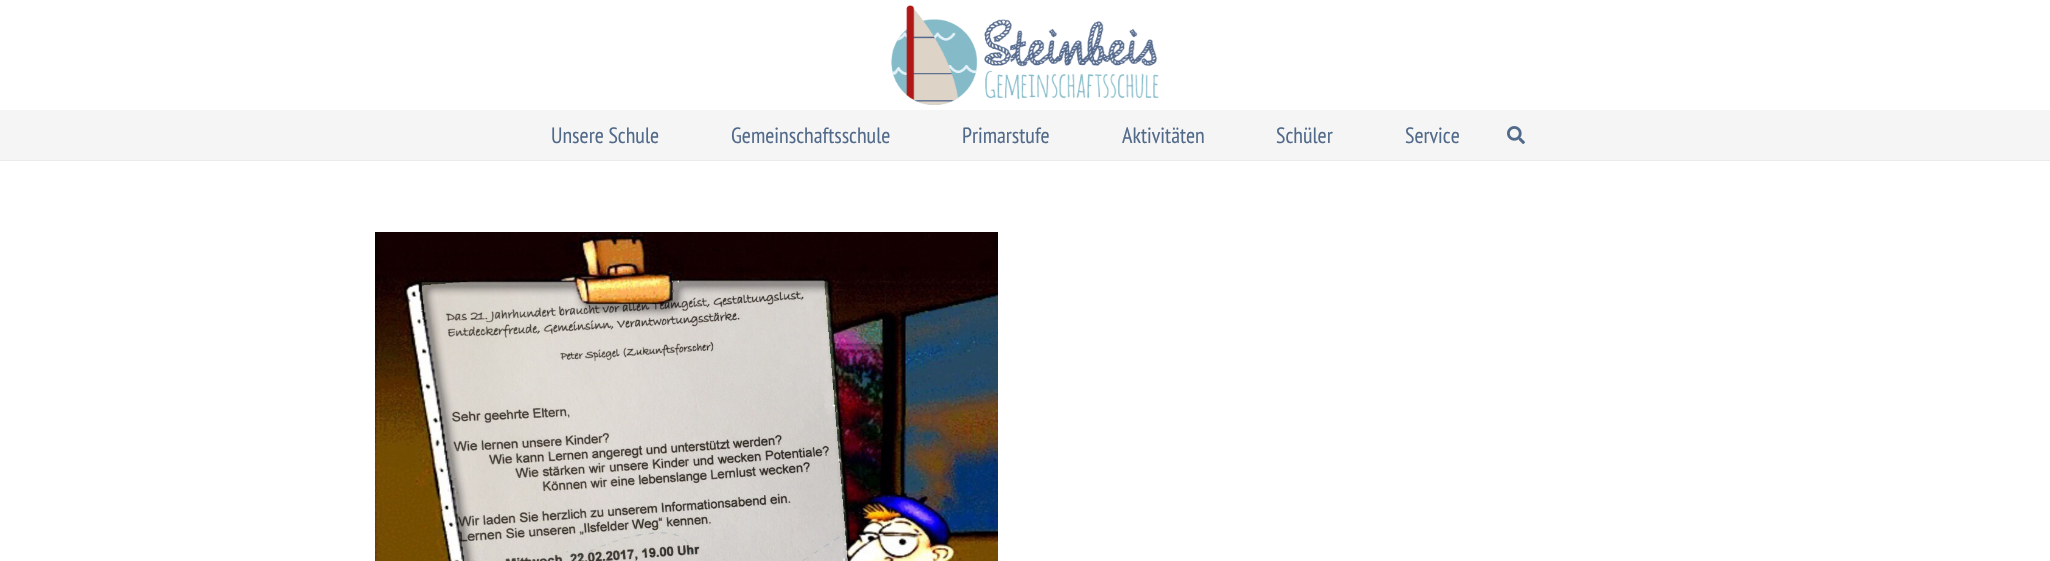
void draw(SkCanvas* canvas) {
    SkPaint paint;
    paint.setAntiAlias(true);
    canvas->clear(0xFFFFFFFF);
    canvas->drawImageRect(SkImages::DeferredFromEncodedData(SkData::MakeFromFileName("img1.png")), SkRect::MakeXYWH(891, 5, 268, 100), SkSamplingOptions());
    paint.setColor(0xFFEBEBEB);
    canvas->drawRect(SkRect::MakeXYWH(0, 160, 2050, 1), paint);
    paint.setColor(0xFFF5F5F5);
    canvas->drawRect(SkRect::MakeXYWH(0, 110, 2050, 50), paint);
    SkFont font1(fontMgr->matchFamilyStyle("PT Sans Narrow", SkFontStyle::Normal()), 22);
    font1.setSubpixel(true);
    paint.setColor(0xFF526A8A);
    canvas->drawString("Unsere Schule", 551, 143, font1, paint);
    canvas->drawString("Gemeinschaftsschule", 731, 143, font1, paint);
    canvas->drawString("Primarstufe", 962, 143, font1, paint);
    canvas->drawString("Aktivitäten", 1122, 143, font1, paint);
    canvas->drawString("Schüler", 1276, 143, font1, paint);
    canvas->drawString("Service", 1405, 143, font1, paint);
    canvas->drawImageRect(SkImages::DeferredFromEncodedData(SkData::MakeFromFileName("img2.png")), SkRect::MakeXYWH(1507, 126, 18, 18), SkSamplingOptions());
    canvas->drawImageRect(SkImages::DeferredFromEncodedData(SkData::MakeFromFileName("img3.png")), SkRect::MakeXYWH(375, 232, 623, 329), SkSamplingOptions());
}
